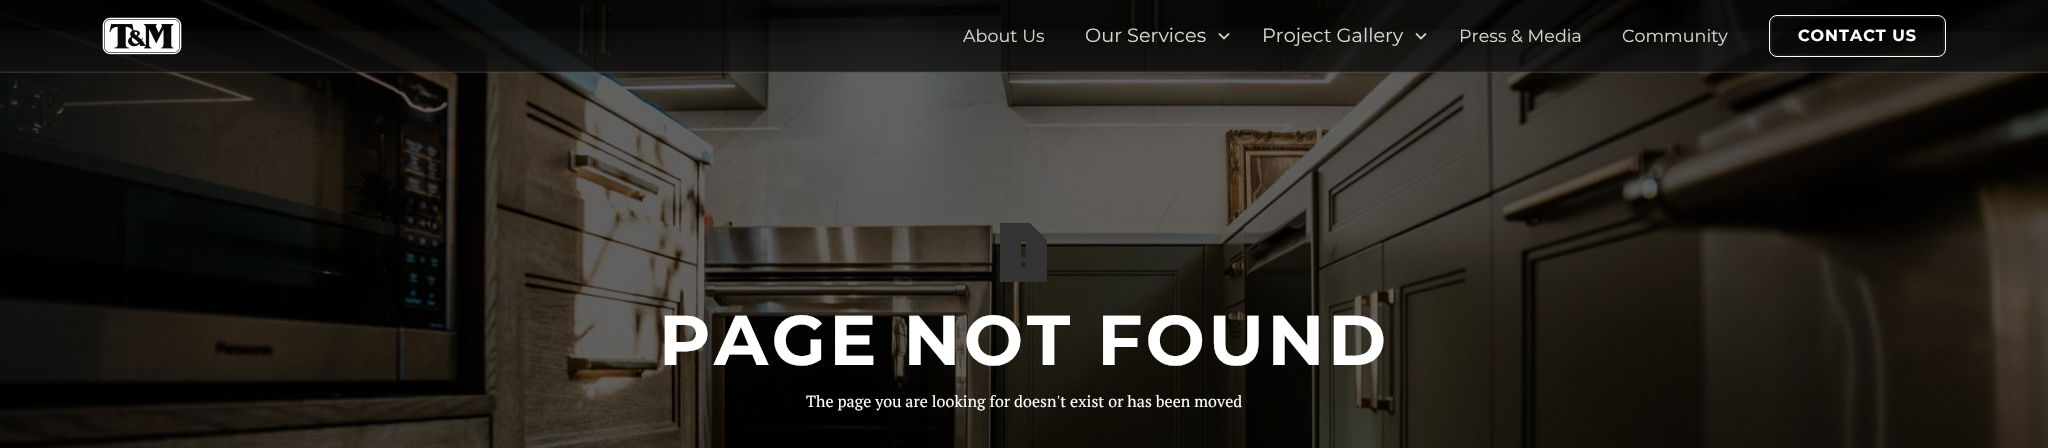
void draw(SkCanvas* canvas) {
    SkPaint paint;
    paint.setAntiAlias(true);
    auto spacedText = [&](const char* s, float x, float y, const SkFont& font, const SkPaint& ink, float letter, float word) {
        std::vector<SkGlyphID> glyphs(font.countText(s, strlen(s), SkTextEncoding::kUTF8));
        std::vector<float> xs(glyphs.size());
        font.textToGlyphs(s, strlen(s), SkTextEncoding::kUTF8, glyphs);
        font.getXPos(glyphs, xs, x);
        float extra = 0;
        for (size_t i = 0; i < glyphs.size(); i++) {
            xs[i] += extra;
            extra += letter + word * (glyphs[i] == font.unicharToGlyph(' '));
        }
        canvas->drawTextBlob(SkTextBlob::MakeFromPosHGlyphs(glyphs, xs, y, font), 0, 0, ink);
    };
    canvas->clear(0xFFFFFFFF);
    canvas->drawImageRect(SkImages::DeferredFromEncodedData(SkData::MakeFromFileName("img4.png")), SkRect::MakeXYWH(0, 0, 2048, 448), SkSamplingOptions());
    paint.setColor(0xCC000000);
    canvas->drawRect(SkRect::MakeXYWH(0, 0, 2048, 72), paint);
    {
        const SkColor colors[] = {0x00FFFFFF, 0x0DFFFFFF};
        const float stops[] = {0, 1};
        const SkPoint ends[] = {{1024, 0}, {1024, 71}};
        paint.setShader(SkGradientShader::MakeLinear(ends, colors, stops, 2, SkTileMode::kClamp));
        paint.setAlpha(255);
    }
    canvas->drawRect(SkRect::MakeXYWH(0, 31, 2048, 40), paint);
    paint.setShader(nullptr);
    paint.setColor(0x1AFFFFFF);
    canvas->drawRect(SkRect::MakeXYWH(0, 71, 2048, 1), paint);
    paint.setStyle(SkPaint::kStroke_Style);
    paint.setStrokeWidth(1);
    paint.setColor(0x804B4B4B);
    canvas->drawRect(SkRect::MakeXYWH(-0.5f, -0.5f, 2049, 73), paint);
    canvas->drawImageRect(SkImages::DeferredFromEncodedData(SkData::MakeFromFileName("img1.png")), SkRect::MakeXYWH(102, 17, 80, 38), SkSamplingOptions());
    SkFont font1(fontMgr->matchFamilyStyle("Montserrat", SkFontStyle::Normal()), 17.5f);
    font1.setSubpixel(true);
    paint.setStyle(SkPaint::kFill_Style);
    paint.setColor(0xFFD8D6D1);
    spacedText("About Us", 963, 42, font1, paint, 0.05f, 0);
    SkFont font2(fontMgr->matchFamilyStyle("Montserrat", SkFontStyle::Normal()), 19.25f);
    font2.setSubpixel(true);
    spacedText("Our Services", 1085, 42, font2, paint, 0.05f, 0);
    canvas->drawImageRect(SkImages::DeferredFromEncodedData(SkData::MakeFromFileName("img2.png")), SkRect::MakeXYWH(1218, 33, 12, 7), SkSamplingOptions());
    spacedText("Project Gallery", 1262, 42, font2, paint, 0.05f, 0);
    canvas->drawImageRect(SkImages::DeferredFromEncodedData(SkData::MakeFromFileName("img3.png")), SkRect::MakeXYWH(1415, 33, 12, 7), SkSamplingOptions());
    spacedText("Press & Media", 1459, 42, font1, paint, 0.05f, 0);
    spacedText("Community", 1622, 42, font1, paint, 0.05f, 0);
    paint.setStyle(SkPaint::kStroke_Style);
    paint.setStrokeWidth(2);
    paint.setColor(0xFF191919);
    canvas->drawRoundRect(SkRect::MakeXYWH(1771, 17, 173, 38), 6, 6, paint);
    paint.setStrokeWidth(1);
    paint.setColor(0xFFFFFFFF);
    canvas->drawRoundRect(SkRect::MakeXYWH(1769.5f, 15.5f, 176, 41), 7.5f, 7.5f, paint);
    SkFont font3(fontMgr->matchFamilyStyle("Montserrat", SkFontStyle::Bold()), 16);
    font3.setSubpixel(true);
    paint.setStyle(SkPaint::kFill_Style);
    spacedText("CONTACT US", 1798, 41, font3, paint, 1, 0);
    paint.setColor(0xFF333333);
    canvas->drawPath(SkPathBuilder(SkPathFillType::kEvenOdd).moveTo(1000, 223).lineTo(1030, 223).lineTo(1047, 240).lineTo(1047, 282).lineTo(1000, 282).close().moveTo(1021, 242).lineTo(1026, 242).lineTo(1026, 257).lineTo(1021, 257).close().moveTo(1021, 262).lineTo(1026, 262).lineTo(1026, 267).lineTo(1021, 267).close().detach(), paint);
    SkFont font4(fontMgr->matchFamilyStyle("Montserrat", SkFontStyle::Bold()), 70.4f);
    font4.setSubpixel(true);
    paint.setColor(0xFFFFFFFF);
    spacedText("PAGE NOT FOUND", 659, 365, font4, paint, 3.5f, 0);
    SkFont font5(fontMgr->matchFamilyStyle("PT Serif", SkFontStyle::Normal()), 16);
    font5.setSubpixel(true);
    spacedText("The page you are looking for doesn't exist or has been moved", 806, 407, font5, paint, 0.05f, 0);
}
